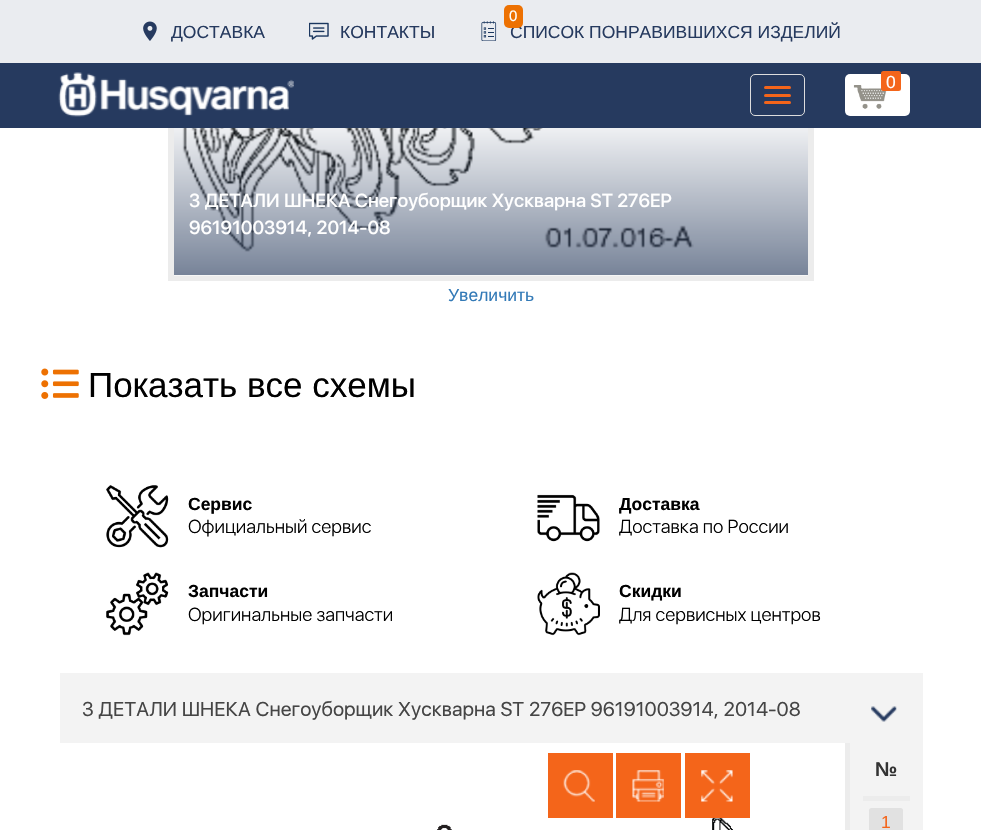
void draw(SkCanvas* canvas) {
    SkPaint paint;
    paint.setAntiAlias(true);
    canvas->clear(0xFFFFFFFF);
    paint.setStyle(SkPaint::kStroke_Style);
    paint.setStrokeWidth(6);
    paint.setColor(0xFFECECEC);
    canvas->drawRect(SkRect::MakeXYWH(171, -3, 640, 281), paint);
    paint.setStyle(SkPaint::kFill_Style);
    paint.setColor(0xFFEAECF0);
    canvas->drawRect(SkRect::MakeXYWH(0, 0, 981, 63), paint);
    canvas->drawImageRect(SkImages::DeferredFromEncodedData(SkData::MakeFromFileName("img1.png")), SkRect::MakeXYWH(143, 21, 14, 20), SkSamplingOptions());
    SkFont font1(fontMgr->matchFamilyStyle("Liberation Sans", SkFontStyle::Normal()), 17.5f);
    font1.setSubpixel(true);
    paint.setColor(0xFF263A5F);
    canvas->drawString("ДОСТАВКА", 171, 38, font1, paint);
    canvas->drawImageRect(SkImages::DeferredFromEncodedData(SkData::MakeFromFileName("img2.png")), SkRect::MakeXYWH(309, 22, 20, 18), SkSamplingOptions());
    canvas->drawString("КОНТАКТЫ", 340, 38, font1, paint);
    canvas->drawImageRect(SkImages::DeferredFromEncodedData(SkData::MakeFromFileName("img3.png")), SkRect::MakeXYWH(481, 21, 16, 20), SkSamplingOptions());
    canvas->drawString("СПИСОК ПОНРАВИВШИХСЯ ИЗДЕЛИЙ", 510, 38, font1, paint);
    paint.setColor(0xFFED7102);
    canvas->drawRoundRect(SkRect::MakeXYWH(504, 5, 19, 23), 5, 5, paint);
    SkFont font2(fontMgr->matchFamilyStyle("Liberation Sans", SkFontStyle::Normal()), 15);
    font2.setSubpixel(true);
    paint.setColor(0xFFFFFFFF);
    canvas->drawString("0", 509, 21, font2, paint);
    paint.setColor(0xFF263A5F);
    canvas->drawRect(SkRect::MakeXYWH(0, 63, 981, 65), paint);
    canvas->drawImageRect(SkImages::DeferredFromEncodedData(SkData::MakeFromFileName("img4.png")), SkRect::MakeXYWH(58, 72, 236, 45), SkSamplingOptions());
    paint.setStyle(SkPaint::kStroke_Style);
    paint.setStrokeWidth(1);
    paint.setColor(0xFFDDDDDD);
    canvas->drawRoundRect(SkRect::MakeXYWH(750.5f, 74.5f, 54, 41), 4.5f, 4.5f, paint);
    paint.setStyle(SkPaint::kFill_Style);
    paint.setColor(0xFFF4651A);
    canvas->drawRoundRect(SkRect::MakeXYWH(764, 86, 27, 3), 1.5f, 1.5f, paint);
    canvas->drawRoundRect(SkRect::MakeXYWH(764, 94, 27, 3), 1.5f, 1.5f, paint);
    canvas->drawRoundRect(SkRect::MakeXYWH(764, 101, 27, 3), 1.5f, 1.5f, paint);
    paint.setColor(0xFFFFFFFF);
    canvas->drawRoundRect(SkRect::MakeXYWH(845, 74, 65, 42), 5, 5, paint);
    canvas->drawImageRect(SkImages::DeferredFromEncodedData(SkData::MakeFromFileName("img5.png")), SkRect::MakeXYWH(853, 85, 34, 24), SkSamplingOptions());
    paint.setColor(0xFFF4651A);
    canvas->drawRoundRect(SkRect::MakeXYWH(881, 71, 20, 20), 2.5f, 2.5f, paint);
    paint.setColor(0xFFFFFFFF);
    canvas->drawString("0", 886, 88, font1, paint);
    canvas->drawImageRect(SkImages::DeferredFromEncodedData(SkData::MakeFromFileName("img6.png")), SkRect::MakeXYWH(174, 128, 634, 148), SkSamplingOptions());
    {
        const SkColor colors[] = {0xA32B3E5F, 0x002B3E5F};
        const float stops[] = {0, 0.92f};
        const SkPoint ends[] = {{491, 275}, {491, 93}};
        paint.setShader(SkGradientShader::MakeLinear(ends, colors, stops, 2, SkTileMode::kClamp));
        paint.setAlpha(255);
    }
    canvas->drawRect(SkRect::MakeXYWH(174, 128, 634, 147), paint);
    SkFont font3(fontMgr->matchFamilyStyle("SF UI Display", SkFontStyle(500, SkFontStyle::kNormal_Width, SkFontStyle::kUpright_Slant)), 18.75f);
    font3.setSubpixel(true);
    paint.setShader(nullptr);
    paint.setColor(0xFFFFFFFF);
    canvas->drawString("3 ДЕТАЛИ ШНЕКА Снегоуборщик Хускварна ST 276EP", 189, 207, font3, paint);
    canvas->drawString("96191003914, 2014-08", 189, 234, font3, paint);
    paint.setColor(0xFF337AB7);
    canvas->drawString("Увеличить", 448, 301, font1, paint);
    canvas->drawImageRect(SkImages::DeferredFromEncodedData(SkData::MakeFromFileName("img7.png")), SkRect::MakeXYWH(41, 368, 38, 31), SkSamplingOptions());
    SkFont font4(fontMgr->matchFamilyStyle("Liberation Sans", SkFontStyle::Normal()), 35);
    font4.setSubpixel(true);
    paint.setColor(0xFF000000);
    canvas->drawString("Показать все схемы", 88, 397, font4, paint);
    canvas->drawImageRect(SkImages::DeferredFromEncodedData(SkData::MakeFromFileName("img8.png")), SkRect::MakeXYWH(106, 485, 63, 63), SkSamplingOptions());
    SkFont font5(fontMgr->matchFamilyStyle("Liberation Sans", SkFontStyle::Bold()), 17.5f);
    font5.setSubpixel(true);
    canvas->drawString("Сервис", 188, 510, font5, paint);
    SkFont font6(fontMgr->matchFamilyStyle("SF UI Display", SkFontStyle(300, SkFontStyle::kNormal_Width, SkFontStyle::kUpright_Slant)), 18.75f);
    font6.setSubpixel(true);
    canvas->drawString("Официальный сервис", 188, 533, font6, paint);
    canvas->drawImageRect(SkImages::DeferredFromEncodedData(SkData::MakeFromFileName("img9.png")), SkRect::MakeXYWH(537, 494, 63, 48), SkSamplingOptions());
    canvas->drawString("Доставка", 619, 510, font5, paint);
    canvas->drawString("Доставка по России", 619, 533, font6, paint);
    canvas->drawImageRect(SkImages::DeferredFromEncodedData(SkData::MakeFromFileName("img10.png")), SkRect::MakeXYWH(106, 572, 63, 64), SkSamplingOptions());
    canvas->drawString("Запчасти", 188, 597, font5, paint);
    canvas->drawString("Оригинальные запчасти", 188, 621, font6, paint);
    canvas->drawImageRect(SkImages::DeferredFromEncodedData(SkData::MakeFromFileName("img11.png")), SkRect::MakeXYWH(537, 572, 63, 64), SkSamplingOptions());
    canvas->drawString("Скидки", 619, 597, font5, paint);
    canvas->drawString("Для сервисных центров", 619, 621, font6, paint);
    paint.setColor(0xFFF3F3F3);
    canvas->drawRect(SkRect::MakeXYWH(60, 673, 863, 70), paint);
    canvas->drawImageRect(SkImages::DeferredFromEncodedData(SkData::MakeFromFileName("img12.png")), SkRect::MakeXYWH(871, 706, 26, 16), SkSamplingOptions());
    SkFont font7(fontMgr->matchFamilyStyle("SF UI Display", SkFontStyle::Normal()), 20);
    font7.setSubpixel(true);
    paint.setColor(0xFF454545);
    canvas->drawString("3 ДЕТАЛИ ШНЕКА Снегоуборщик Хускварна ST 276EP 96191003914, 2014-08", 82, 716, font7, paint);
    canvas->drawImageRect(SkImages::DeferredFromEncodedData(SkData::MakeFromFileName("img16.png")), SkRect::MakeXYWH(437, 816, 296, 14), SkSamplingOptions());
    paint.setColor(0xFFF4651A);
    canvas->drawRect(SkRect::MakeXYWH(548, 753, 65, 65), paint);
    canvas->drawImageRect(SkImages::DeferredFromEncodedData(SkData::MakeFromFileName("img13.png")), SkRect::MakeXYWH(563, 770, 32, 32), SkSamplingOptions());
    canvas->drawRect(SkRect::MakeXYWH(616, 753, 65, 65), paint);
    canvas->drawImageRect(SkImages::DeferredFromEncodedData(SkData::MakeFromFileName("img14.png")), SkRect::MakeXYWH(632, 770, 32, 32), SkSamplingOptions());
    canvas->drawRect(SkRect::MakeXYWH(685, 753, 65, 65), paint);
    canvas->drawImageRect(SkImages::DeferredFromEncodedData(SkData::MakeFromFileName("img15.png")), SkRect::MakeXYWH(701, 770, 32, 32), SkSamplingOptions());
    paint.setColor(0xFFF3F3F3);
    canvas->drawRect(SkRect::MakeXYWH(850, 743, 73, 87), paint);
    paint.setColor(0xFFECECEC);
    canvas->drawRect(SkRect::MakeXYWH(845, 743, 5, 87), paint);
    canvas->drawRect(SkRect::MakeXYWH(863, 796, 47, 5), paint);
    SkFont font8(fontMgr->matchFamilyStyle("Liberation Sans", SkFontStyle::Bold()), 20);
    font8.setSubpixel(true);
    paint.setColor(0xFF333333);
    canvas->drawString("№", 875, 776, font8, paint);
    paint.setColor(0xFFE1E1E1);
    canvas->drawRoundRect(SkRect::MakeXYWH(869, 808, 34, 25), 2.5f, 2.5f, paint);
    paint.setColor(0xFFF4651A);
    canvas->drawString("1", 881, 828, font1, paint);
}
